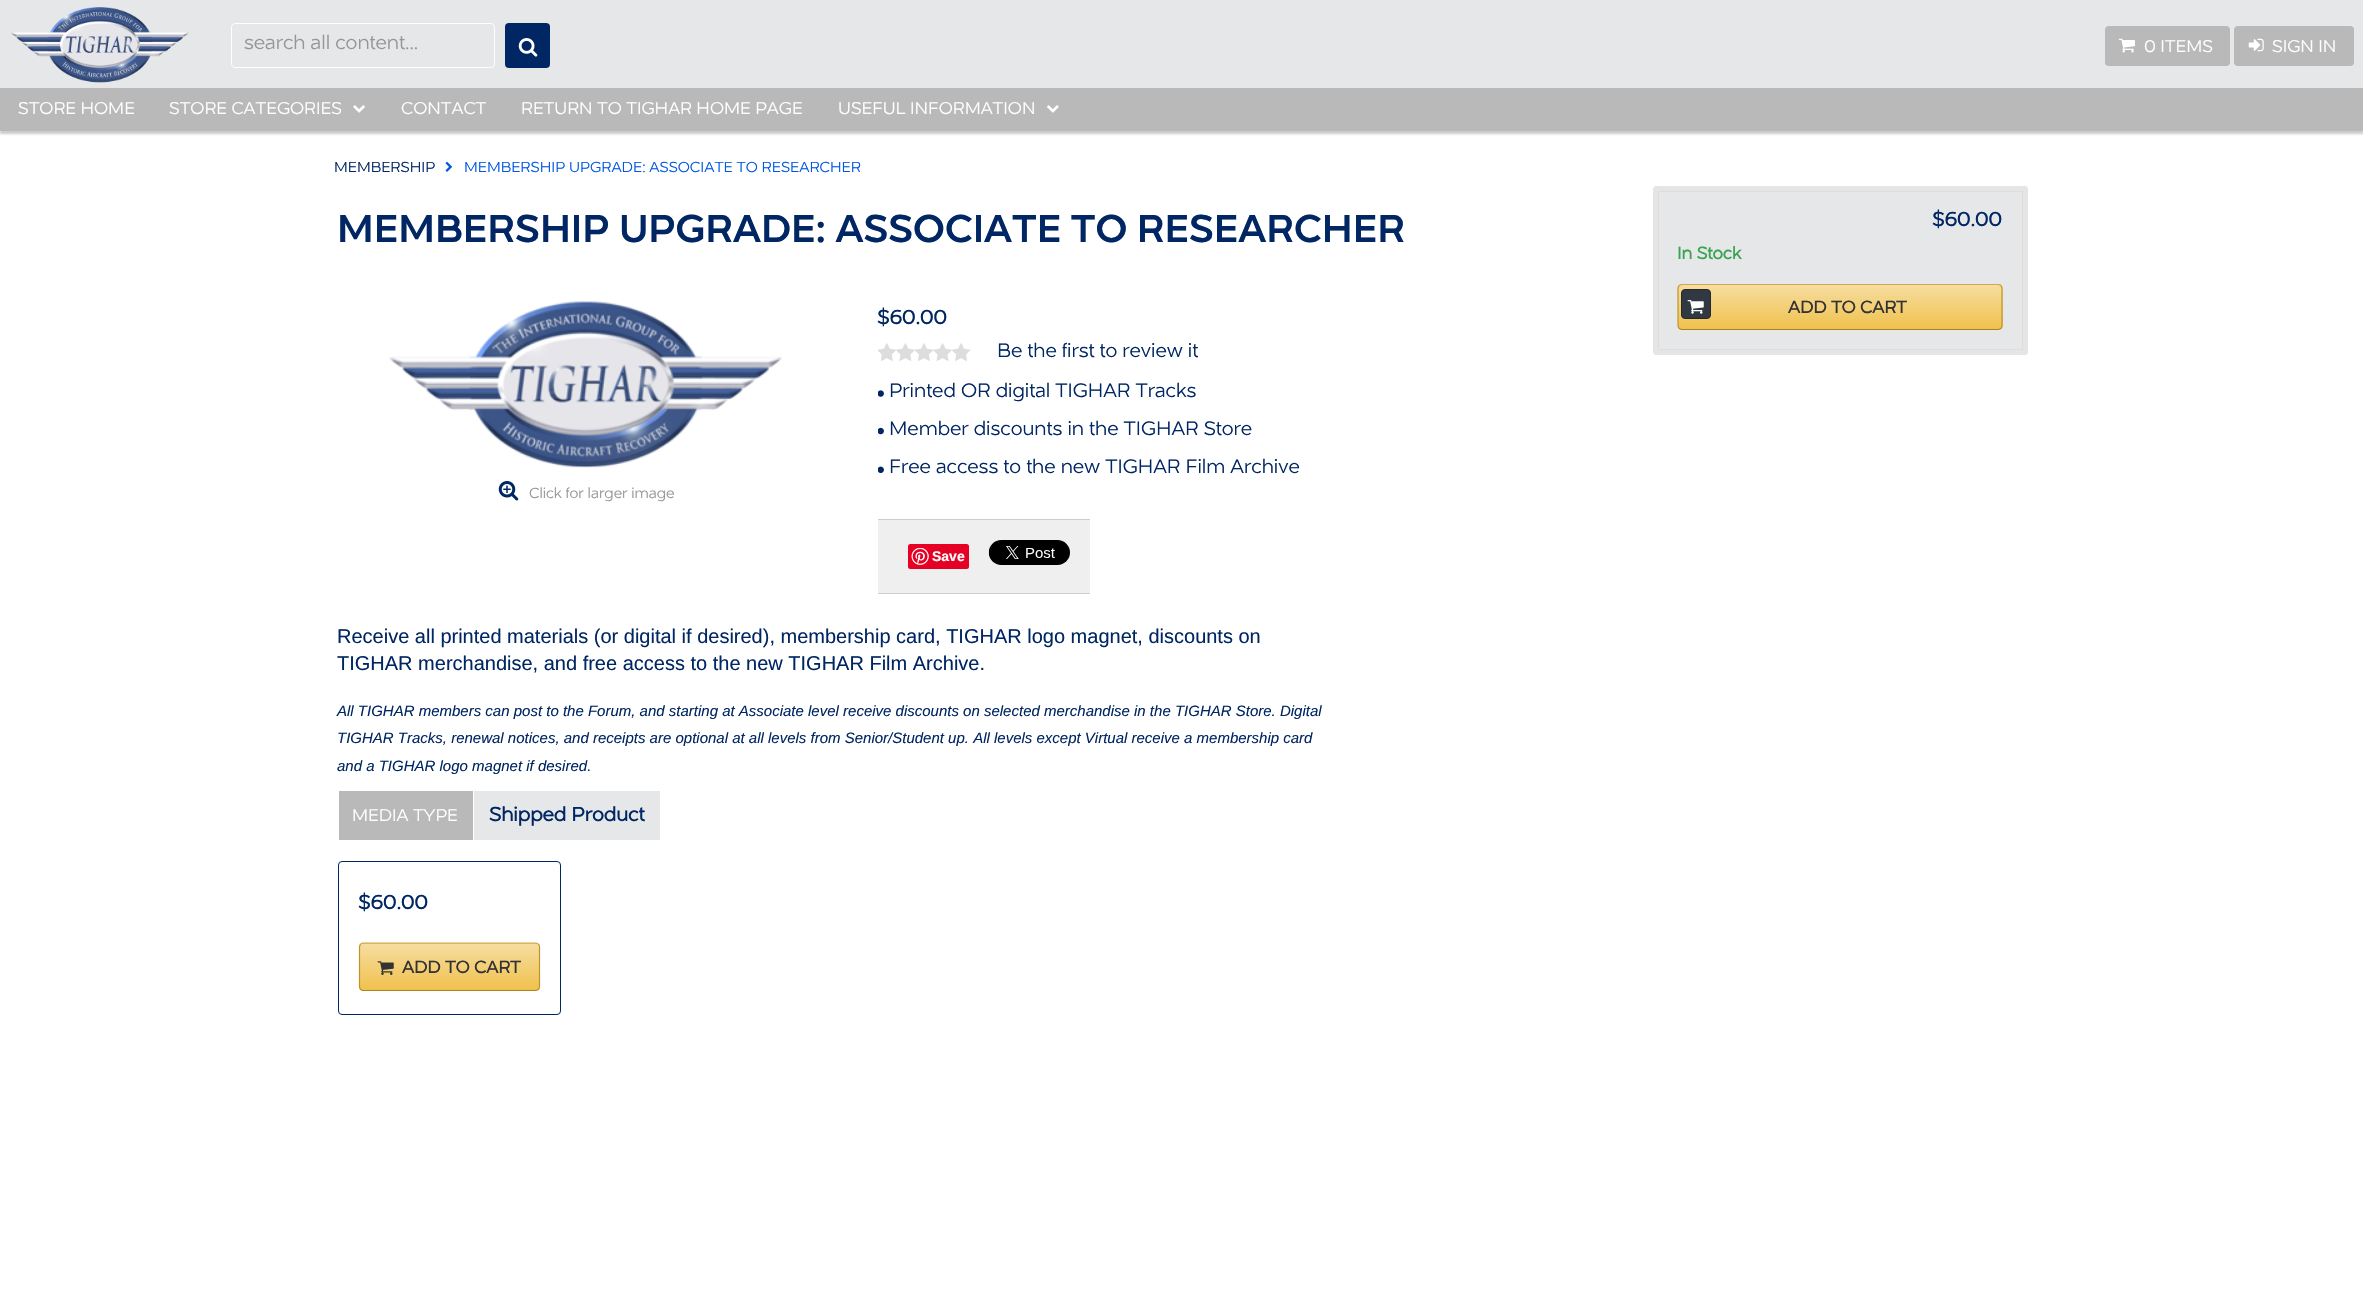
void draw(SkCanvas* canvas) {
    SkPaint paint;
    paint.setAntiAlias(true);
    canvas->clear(0xFFFFFFFF);
    paint.setColor(0xFFE6E7E8);
    canvas->drawRect(SkRect::MakeXYWH(0, 0, 2363, 88), paint);
    canvas->drawImageRect(SkImages::DeferredFromEncodedData(SkData::MakeFromFileName("img1.png")), SkRect::MakeXYWH(11, 7, 178, 76), SkSamplingOptions());
    paint.setStyle(SkPaint::kStroke_Style);
    paint.setStrokeWidth(1);
    paint.setColor(0xFFFEFEFE);
    canvas->drawRoundRect(SkRect::MakeXYWH(231.5f, 23.5f, 263, 44), 3.5f, 3.5f, paint);
    SkFont font1(fontMgr->matchFamilyStyle("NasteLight", SkFontStyle::Normal()), 20);
    font1.setSubpixel(true);
    paint.setStyle(SkPaint::kFill_Style);
    paint.setColor(0xFF969696);
    canvas->drawString("search all content...", 244, 49, font1, paint);
    paint.setColor(0xFF002663);
    canvas->drawRoundRect(SkRect::MakeXYWH(505, 23, 45, 45), 4, 4, paint);
    canvas->drawImageRect(SkImages::DeferredFromEncodedData(SkData::MakeFromFileName("img2.png")), SkRect::MakeXYWH(518, 38, 20, 19), SkSamplingOptions());
    paint.setColor(0xFFB9B9B9);
    canvas->drawRoundRect(SkRect::MakeXYWH(2105, 26, 125, 40), 4, 4, paint);
    canvas->drawImageRect(SkImages::DeferredFromEncodedData(SkData::MakeFromFileName("img3.png")), SkRect::MakeXYWH(2118, 38, 17, 15), SkSamplingOptions());
    SkFont font2(fontMgr->matchFamilyStyle("NasteLight", SkFontStyle::Normal()), 17.5f);
    font2.setSubpixel(true);
    paint.setColor(0xFFFFFFFF);
    canvas->drawString("0 ITEMS", 2144, 52, font2, paint);
    paint.setColor(0xFFB9B9B9);
    canvas->drawRoundRect(SkRect::MakeXYWH(2234, 26, 120, 40), 4, 4, paint);
    canvas->drawImageRect(SkImages::DeferredFromEncodedData(SkData::MakeFromFileName("img4.png")), SkRect::MakeXYWH(2248, 38, 16, 14), SkSamplingOptions());
    paint.setColor(0xFFFFFFFF);
    canvas->drawString("SIGN IN", 2272, 52, font2, paint);
    paint.setColor(0x33000000);
    paint.setMaskFilter(SkMaskFilter::MakeBlur(kNormal_SkBlurStyle, 1));
    canvas->drawRect(SkRect::MakeXYWH(0, 90, 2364, 44), paint);
    paint.setMaskFilter(nullptr);
    paint.setColor(0xFFB9B9B9);
    canvas->drawRect(SkRect::MakeXYWH(0, 88, 2363, 43), paint);
    paint.setColor(0xFFFFFFFF);
    canvas->drawString("STORE HOME", 18, 114, font2, paint);
    canvas->drawString("STORE CATEGORIES", 169, 114, font2, paint);
    canvas->drawImageRect(SkImages::DeferredFromEncodedData(SkData::MakeFromFileName("img5.png")), SkRect::MakeXYWH(353, 105, 12, 8), SkSamplingOptions());
    canvas->drawString("CONTACT", 401, 114, font2, paint);
    canvas->drawString("RETURN TO TIGHAR HOME PAGE", 521, 114, font2, paint);
    canvas->drawString("USEFUL INFORMATION", 838, 114, font2, paint);
    canvas->drawImageRect(SkImages::DeferredFromEncodedData(SkData::MakeFromFileName("img6.png")), SkRect::MakeXYWH(1047, 105, 12, 8), SkSamplingOptions());
    SkFont font3(fontMgr->matchFamilyStyle("NasteLight", SkFontStyle::Normal()), 15);
    font3.setSubpixel(true);
    paint.setColor(0xFF002663);
    canvas->drawString("MEMBERSHIP", 334, 172, font3, paint);
    canvas->drawImageRect(SkImages::DeferredFromEncodedData(SkData::MakeFromFileName("img7.png")), SkRect::MakeXYWH(445, 161, 7, 11), SkSamplingOptions());
    paint.setColor(0xFF0057E3);
    canvas->drawString("MEMBERSHIP UPGRADE: ASSOCIATE TO RESEARCHER", 464, 172, font3, paint);
    SkFont font4(fontMgr->matchFamilyStyle("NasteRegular", SkFontStyle::Normal()), 40);
    font4.setSubpixel(true);
    paint.setColor(0xFF002663);
    canvas->drawString("MEMBERSHIP UPGRADE: ASSOCIATE TO RESEARCHER", 337, 242, font4, paint);
    canvas->drawImageRect(SkImages::DeferredFromEncodedData(SkData::MakeFromFileName("img8.png")), SkRect::MakeXYWH(389, 301, 393, 167), SkSamplingOptions());
    canvas->drawImageRect(SkImages::DeferredFromEncodedData(SkData::MakeFromFileName("img9.png")), SkRect::MakeXYWH(498, 481, 21, 20), SkSamplingOptions());
    paint.setColor(0xFF969696);
    canvas->drawString("Click for larger image", 529, 498, font3, paint);
    SkFont font5(fontMgr->matchFamilyStyle("NasteLight", SkFontStyle::Bold()), 20);
    font5.setSubpixel(true);
    paint.setColor(0xFF002663);
    canvas->drawString("$60.00", 877, 324, font5, paint);
    canvas->drawImageRect(SkImages::DeferredFromEncodedData(SkData::MakeFromFileName("img10.png")), SkRect::MakeXYWH(878, 343, 93, 18), SkSamplingOptions());
    canvas->drawString("Be the first to review it", 997, 357, font1, paint);
    canvas->drawImageRect(SkImages::DeferredFromEncodedData(SkData::MakeFromFileName("img11.png")), SkRect::MakeXYWH(878, 390, 6, 7), SkSamplingOptions());
    canvas->drawString("Printed OR digital TIGHAR Tracks", 889, 397, font1, paint);
    canvas->drawImageRect(SkImages::DeferredFromEncodedData(SkData::MakeFromFileName("img12.png")), SkRect::MakeXYWH(878, 427, 6, 8), SkSamplingOptions());
    canvas->drawString("Member discounts in the TIGHAR Store", 889, 435, font1, paint);
    canvas->drawImageRect(SkImages::DeferredFromEncodedData(SkData::MakeFromFileName("img13.png")), SkRect::MakeXYWH(878, 466, 6, 7), SkSamplingOptions());
    canvas->drawString("Free access to the new TIGHAR Film Archive", 889, 473, font1, paint);
    paint.setColor(0xFFEFEFEF);
    canvas->drawRect(SkRect::MakeXYWH(878, 520, 212, 73), paint);
    paint.setColor(0xFFCDCDCD);
    canvas->drawRect(SkRect::MakeXYWH(878, 519, 212, 1), paint);
    canvas->drawRect(SkRect::MakeXYWH(878, 593, 212, 1), paint);
    paint.setColor(0xFFE60023);
    canvas->drawRoundRect(SkRect::MakeXYWH(908, 544, 61, 25), 2.5f, 2.5f, paint);
    canvas->drawImageRect(SkImages::DeferredFromEncodedData(SkData::MakeFromFileName("img14.png")), SkRect::MakeXYWH(911, 548, 18, 17), SkSamplingOptions());
    SkFont font6(fontMgr->matchFamilyStyle("Liberation Sans", SkFontStyle::Bold()), 14);
    font6.setSubpixel(true);
    paint.setColor(0xFFFFFFFF);
    canvas->drawString("Save", 932, 561, font6, paint);
    canvas->drawImageRect(SkImages::DeferredFromEncodedData(SkData::MakeFromFileName("img15.png")), SkRect::MakeXYWH(988, 540, 82, 25), SkSamplingOptions());
    SkFont font7(fontMgr->matchFamilyStyle("Liberation Sans", SkFontStyle::Normal()), 20);
    font7.setSubpixel(true);
    paint.setColor(0xFF002663);
    canvas->drawString("Receive all printed materials (or digital if desired), membership card, TIGHAR logo magnet, discounts on", 337, 643, font7, paint);
    canvas->drawString("TIGHAR merchandise, and free access to the new TIGHAR Film Archive.", 337, 670, font7, paint);
    SkFont font8(fontMgr->matchFamilyStyle("Liberation Sans", SkFontStyle::Italic()), 15);
    font8.setSubpixel(true);
    canvas->drawString("All TIGHAR members can post to the Forum, and starting at Associate level receive discounts on selected merchandise in the TIGHAR Store. Digital", 337, 716, font8, paint);
    canvas->drawString("TIGHAR Tracks, renewal notices, and receipts are optional at all levels from Senior/Student up. All levels except Virtual receive a membership card", 337, 743, font8, paint);
    canvas->drawString("and a TIGHAR logo magnet if desired.", 337, 771, font8, paint);
    paint.setColor(0xFFB9B9B9);
    canvas->drawRect(SkRect::MakeXYWH(339, 791, 134, 49), paint);
    paint.setColor(0xFFFFFFFF);
    canvas->drawString("MEDIA TYPE", 352, 821, font2, paint);
    paint.setColor(0xFFE6E7E8);
    canvas->drawRect(SkRect::MakeXYWH(474, 791, 186, 49), paint);
    paint.setColor(0xFF002663);
    canvas->drawString("Shipped Product", 489, 821, font5, paint);
    paint.setStyle(SkPaint::kStroke_Style);
    canvas->drawRoundRect(SkRect::MakeXYWH(338.5f, 861.5f, 222, 153), 3.5f, 3.5f, paint);
    paint.setStyle(SkPaint::kFill_Style);
    canvas->drawString("$60.00", 358, 909, font5, paint);
    canvas->save();
    canvas->clipPath(SkPathBuilder().moveTo(363, 943).lineTo(536, 943).cubicTo(538, 943, 540, 945, 540, 947).lineTo(540, 987).cubicTo(540, 989, 538, 991, 536, 991).lineTo(363, 991).cubicTo(361, 991, 359, 989, 359, 987).lineTo(359, 947).cubicTo(359, 945, 361, 943, 363, 943).close().detach(), true);
    {
        const SkColor colors[] = {0xFFF6DDA0, 0xFFF0C14D};
        const float stops[] = {0, 1};
        const SkPoint ends[] = {{449, 898}, {449, 944}};
        paint.setShader(SkGradientShader::MakeLinear(ends, colors, stops, 2, SkTileMode::kClamp));
        paint.setAlpha(255);
    }
    canvas->drawRect(SkRect::MakeXYWH(359, 943, 181, 1), paint);
    {
        const SkColor colors[] = {0xFFF6DDA0, 0xFFF0C14D};
        const float stops[] = {0, 1};
        const SkPoint ends[] = {{449, 944}, {449, 990}};
        paint.setShader(SkGradientShader::MakeLinear(ends, colors, stops, 2, SkTileMode::kClamp));
        paint.setAlpha(255);
    }
    canvas->drawRect(SkRect::MakeXYWH(359, 944, 181, 46), paint);
    canvas->restore();
    paint.setStyle(SkPaint::kStroke_Style);
    paint.setStrokeWidth(1.2f);
    paint.setShader(nullptr);
    paint.setColor(0xFFCBA957);
    canvas->drawPath(SkPathBuilder().moveTo(360.5f, 944).lineTo(362.5f, 943).lineTo(507, 943).lineTo(536, 943).lineTo(538.5f, 944).detach(), paint);
    paint.setColor(0xFFBF942A);
    canvas->drawPath(SkPathBuilder().moveTo(538.5f, 944).lineTo(539.5f, 946.5f).lineTo(539.5f, 987).lineTo(538.5f, 989.5f).detach(), paint);
    paint.setColor(0xFFAA8326);
    canvas->drawPath(SkPathBuilder().moveTo(538.5f, 989.5f).lineTo(536, 990.5f).lineTo(362.5f, 990.5f).lineTo(360.5f, 989.5f).detach(), paint);
    paint.setColor(0xFFBF942A);
    canvas->drawPath(SkPathBuilder().moveTo(360.5f, 989.5f).lineTo(359.5f, 987).lineTo(359.5f, 946.5f).lineTo(360.5f, 944).detach(), paint);
    canvas->drawImageRect(SkImages::DeferredFromEncodedData(SkData::MakeFromFileName("img16.png")), SkRect::MakeXYWH(377, 961, 17, 14), SkSamplingOptions());
    SkFont font9(fontMgr->matchFamilyStyle("NasteLight", SkFontStyle::Bold()), 17.5f);
    font9.setSubpixel(true);
    paint.setStyle(SkPaint::kFill_Style);
    paint.setColor(0xFF333333);
    canvas->drawString("ADD TO CART", 402, 973, font9, paint);
    paint.setColor(0xFFE6E7E8);
    canvas->drawRoundRect(SkRect::MakeXYWH(1653, 186, 375, 169), 4, 4, paint);
    paint.setStyle(SkPaint::kStroke_Style);
    paint.setStrokeWidth(1);
    paint.setColor(0xFFDDDDDD);
    canvas->drawRect(SkRect::MakeXYWH(1658.5f, 191.5f, 364, 158), paint);
    paint.setStrokeWidth(5);
    paint.setColor(0xFFE5E5E5);
    canvas->drawRoundRect(SkRect::MakeXYWH(1655.5f, 188.5f, 370, 164), 1.5f, 1.5f, paint);
    paint.setStyle(SkPaint::kFill_Style);
    paint.setColor(0xFF002663);
    canvas->drawString("$60.00", 1932, 226, font5, paint);
    paint.setColor(0xFF38A351);
    canvas->drawString("In Stock", 1677, 259, font9, paint);
    canvas->save();
    canvas->clipPath(SkPathBuilder().moveTo(1682, 284).lineTo(1999, 284).cubicTo(2001, 284, 2003, 286, 2003, 288).lineTo(2003, 326).cubicTo(2003, 328, 2001, 330, 1999, 330).lineTo(1682, 330).cubicTo(1680, 330, 1678, 328, 1678, 326).lineTo(1678, 288).cubicTo(1678, 286, 1680, 284, 1682, 284).close().detach(), true);
    {
        const SkColor colors[] = {0xFFF6DDA0, 0xFFF0C14D};
        const float stops[] = {0, 1};
        const SkPoint ends[] = {{1840, 241}, {1840, 285}};
        paint.setShader(SkGradientShader::MakeLinear(ends, colors, stops, 2, SkTileMode::kClamp));
        paint.setAlpha(255);
    }
    canvas->drawRect(SkRect::MakeXYWH(1678, 284, 325, 1), paint);
    {
        const SkColor colors[] = {0xFFF6DDA0, 0xFFF0C14D};
        const float stops[] = {0, 1};
        const SkPoint ends[] = {{1840, 285}, {1840, 329}};
        paint.setShader(SkGradientShader::MakeLinear(ends, colors, stops, 2, SkTileMode::kClamp));
        paint.setAlpha(255);
    }
    canvas->drawRect(SkRect::MakeXYWH(1678, 285, 325, 44), paint);
    {
        const SkColor colors[] = {0xFFF6DDA0, 0xFFF0C14D};
        const float stops[] = {0, 1};
        const SkPoint ends[] = {{1840, 329}, {1840, 373}};
        paint.setShader(SkGradientShader::MakeLinear(ends, colors, stops, 2, SkTileMode::kClamp));
        paint.setAlpha(255);
    }
    canvas->drawRect(SkRect::MakeXYWH(1678, 329, 325, 1), paint);
    canvas->restore();
    paint.setStyle(SkPaint::kStroke_Style);
    paint.setStrokeWidth(1.2f);
    paint.setShader(nullptr);
    paint.setColor(0xFFCBA957);
    canvas->drawPath(SkPathBuilder().moveTo(1679, 285.5f).lineTo(1681.5f, 284.5f).lineTo(1998.5f, 284.5f).lineTo(2001, 285.5f).detach(), paint);
    paint.setColor(0xFFBF942A);
    canvas->drawPath(SkPathBuilder().moveTo(2001, 285.5f).lineTo(2002, 288).lineTo(2002, 326).lineTo(2001, 328.5f).detach(), paint);
    paint.setColor(0xFFAA8326);
    canvas->drawPath(SkPathBuilder().moveTo(2001, 328.5f).lineTo(1998.5f, 329.5f).lineTo(1681.5f, 329.5f).lineTo(1679, 328.5f).detach(), paint);
    paint.setColor(0xFFBF942A);
    canvas->drawPath(SkPathBuilder().moveTo(1679, 328.5f).lineTo(1678, 326).lineTo(1678, 288).lineTo(1679, 285.5f).detach(), paint);
    paint.setStyle(SkPaint::kFill_Style);
    paint.setColor(0xFF303942);
    canvas->drawRoundRect(SkRect::MakeXYWH(1681.5f, 289.5f, 29, 29), 3.5f, 3.5f, paint);
    paint.setStyle(SkPaint::kStroke_Style);
    paint.setStrokeWidth(1);
    paint.setColor(0xFF242A31);
    canvas->drawRoundRect(SkRect::MakeXYWH(1681.5f, 289.5f, 29, 29), 3.5f, 3.5f, paint);
    canvas->drawImageRect(SkImages::DeferredFromEncodedData(SkData::MakeFromFileName("img17.png")), SkRect::MakeXYWH(1687, 300, 17, 14), SkSamplingOptions());
    paint.setStyle(SkPaint::kFill_Style);
    paint.setColor(0xFF333333);
    canvas->drawString("ADD TO CART", 1788, 313, font9, paint);
}
